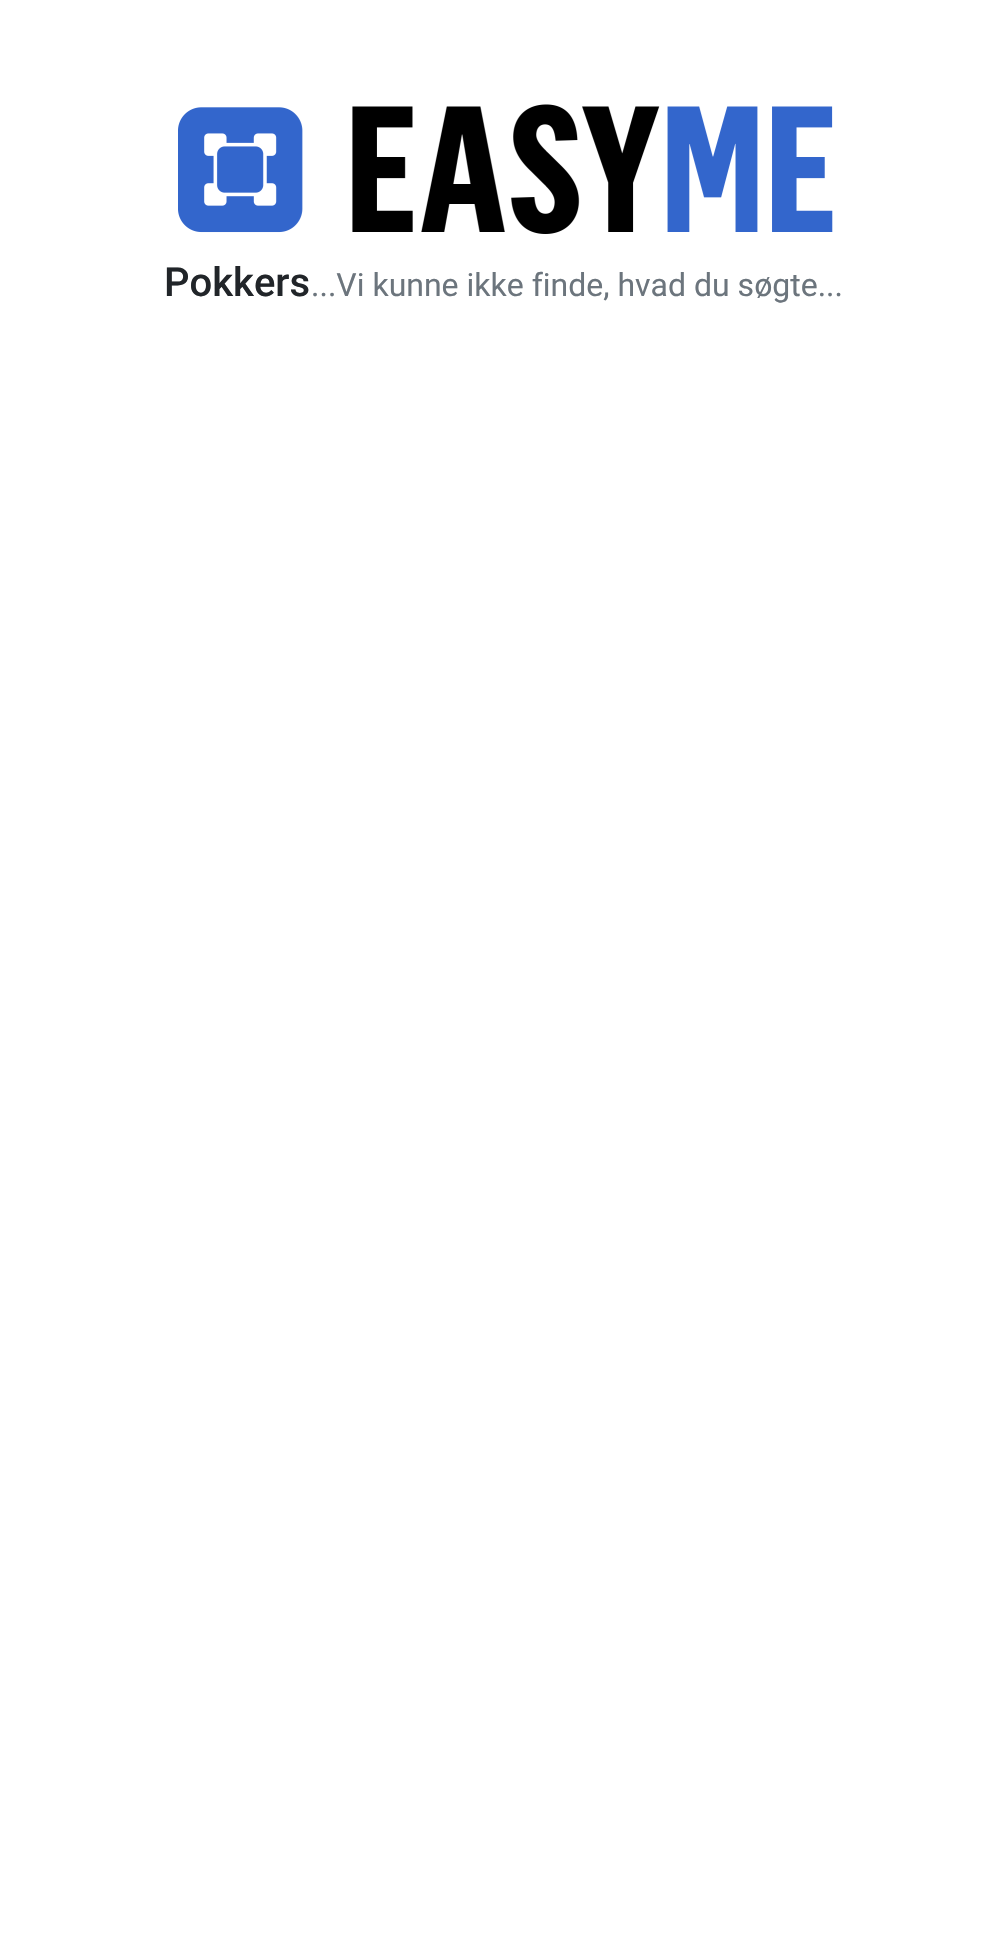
void draw(SkCanvas* canvas) {
    SkPaint paint;
    paint.setAntiAlias(true);
    canvas->clear(0xFFFFFFFF);
    canvas->drawImageRect(SkImages::DeferredFromEncodedData(SkData::MakeFromFileName("img1.png")), SkRect::MakeXYWH(178, 104, 655, 130), SkSamplingOptions());
    SkFont font1(fontMgr->matchFamilyStyle("Roboto", SkFontStyle(500, SkFontStyle::kNormal_Width, SkFontStyle::kUpright_Slant)), 40);
    font1.setSubpixel(true);
    paint.setColor(0xFF212529);
    canvas->drawString("Pokkers", 164, 296, font1, paint);
    SkFont font2(fontMgr->matchFamilyStyle("Roboto", SkFontStyle::Normal()), 32);
    font2.setSubpixel(true);
    paint.setColor(0xFF6C757D);
    canvas->drawString("...Vi kunne ikke finde, hvad du søgte...", 311, 296, font2, paint);
}
